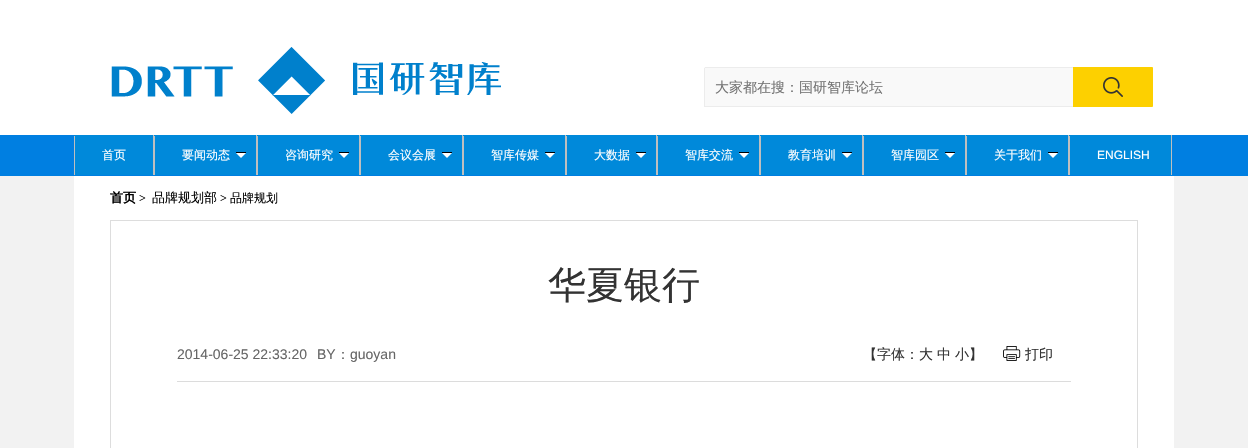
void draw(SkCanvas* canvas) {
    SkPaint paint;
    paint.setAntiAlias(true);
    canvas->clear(0xFFF2F2F2);
    paint.setColor(0xFFFFFFFF);
    canvas->drawRect(SkRect::MakeXYWH(0, 0, 1248, 135), paint);
    canvas->drawImageRect(SkImages::DeferredFromEncodedData(SkData::MakeFromFileName("img1.png")), SkRect::MakeXYWH(111, 47, 390, 67), SkSamplingOptions());
    paint.setColor(0xFFF9F9F9);
    canvas->drawPath(SkPathBuilder().moveTo(705, 67).lineTo(1073, 67).lineTo(1073, 107).lineTo(705, 107).cubicTo(704.5f, 107, 704, 106.5f, 704, 106).lineTo(704, 68).cubicTo(704, 67.5f, 704.5f, 67, 705, 67).close().detach(), paint);
    paint.setColor(0xFFECECEC);
    canvas->drawRect(SkRect::MakeXYWH(705, 67, 368, 1), paint);
    canvas->drawRect(SkRect::MakeXYWH(705, 106, 368, 1), paint);
    canvas->drawRect(SkRect::MakeXYWH(704, 68, 1, 39), paint);
    SkFont font1(fontMgr->matchFamilyStyle("WenQuanYi Zen Hei", SkFontStyle(500, SkFontStyle::kNormal_Width, SkFontStyle::kUpright_Slant)), 14);
    font1.setSubpixel(true);
    paint.setColor(0xFF757575);
    canvas->drawString("大家都在搜：国研智库论坛", 715, 92, font1, paint);
    paint.setColor(0xFFFDD000);
    canvas->drawPath(SkPathBuilder().moveTo(1073, 67).lineTo(1152, 67).cubicTo(1152.5f, 67, 1153, 67.5f, 1153, 68).lineTo(1153, 106).cubicTo(1153, 106.5f, 1152.5f, 107, 1152, 107).lineTo(1073, 107).close().detach(), paint);
    canvas->drawImageRect(SkImages::DeferredFromEncodedData(SkData::MakeFromFileName("img2.png")), SkRect::MakeXYWH(1103, 77, 20, 20), SkSamplingOptions());
    paint.setColor(0xFF007FE1);
    canvas->drawRect(SkRect::MakeXYWH(0, 135, 1248, 41), paint);
    paint.setColor(0xFF0089DA);
    canvas->drawRect(SkRect::MakeXYWH(74, 135, 79, 40), paint);
    paint.setColor(0xFFBFBFBF);
    canvas->drawRect(SkRect::MakeXYWH(153, 135, 1, 40), paint);
    canvas->drawRect(SkRect::MakeXYWH(74, 136, 1, 39), paint);
    SkFont font2(fontMgr->matchFamilyStyle("WenQuanYi Zen Hei", SkFontStyle(500, SkFontStyle::kNormal_Width, SkFontStyle::kUpright_Slant)), 12);
    font2.setSubpixel(true);
    paint.setColor(0xFFFFFFFF);
    canvas->drawString("首页", 102, 159, font2, paint);
    paint.setColor(0xFF0089DA);
    canvas->drawRect(SkRect::MakeXYWH(154, 135, 102, 40), paint);
    paint.setColor(0xFFBFBFBF);
    canvas->drawRect(SkRect::MakeXYWH(256, 135, 1, 40), paint);
    canvas->drawRect(SkRect::MakeXYWH(154, 136, 1, 39), paint);
    paint.setColor(0xFFFFFFFF);
    canvas->drawString("要闻动态", 182, 159, font2, paint);
    paint.setColor(0xFF000000);
    canvas->drawRect(SkRect::MakeXYWH(236, 152, 10, 1), paint);
    paint.setColor(0xFFFFFFFF);
    canvas->drawPath(SkPathBuilder().moveTo(236, 153).lineTo(246, 153).lineTo(241, 158).close().detach(), paint);
    paint.setColor(0xFF0089DA);
    canvas->drawRect(SkRect::MakeXYWH(257, 135, 102, 40), paint);
    paint.setColor(0xFFBFBFBF);
    canvas->drawRect(SkRect::MakeXYWH(359, 135, 1, 40), paint);
    canvas->drawRect(SkRect::MakeXYWH(257, 136, 1, 39), paint);
    paint.setColor(0xFFFFFFFF);
    canvas->drawString("咨询研究", 285, 159, font2, paint);
    paint.setColor(0xFF000000);
    canvas->drawRect(SkRect::MakeXYWH(339, 152, 10, 1), paint);
    paint.setColor(0xFFFFFFFF);
    canvas->drawPath(SkPathBuilder().moveTo(339, 153).lineTo(349, 153).lineTo(344, 158).close().detach(), paint);
    paint.setColor(0xFF0089DA);
    canvas->drawRect(SkRect::MakeXYWH(360, 135, 102, 40), paint);
    paint.setColor(0xFFBFBFBF);
    canvas->drawRect(SkRect::MakeXYWH(462, 135, 1, 40), paint);
    canvas->drawRect(SkRect::MakeXYWH(360, 136, 1, 39), paint);
    paint.setColor(0xFFFFFFFF);
    canvas->drawString("会议会展", 388, 159, font2, paint);
    paint.setColor(0xFF000000);
    canvas->drawRect(SkRect::MakeXYWH(442, 152, 10, 1), paint);
    paint.setColor(0xFFFFFFFF);
    canvas->drawPath(SkPathBuilder().moveTo(442, 153).lineTo(452, 153).lineTo(447, 158).close().detach(), paint);
    paint.setColor(0xFF0089DA);
    canvas->drawRect(SkRect::MakeXYWH(463, 135, 102, 40), paint);
    paint.setColor(0xFFBFBFBF);
    canvas->drawRect(SkRect::MakeXYWH(565, 135, 1, 40), paint);
    canvas->drawRect(SkRect::MakeXYWH(463, 136, 1, 39), paint);
    paint.setColor(0xFFFFFFFF);
    canvas->drawString("智库传媒", 491, 159, font2, paint);
    paint.setColor(0xFF000000);
    canvas->drawRect(SkRect::MakeXYWH(545, 152, 10, 1), paint);
    paint.setColor(0xFFFFFFFF);
    canvas->drawPath(SkPathBuilder().moveTo(545, 153).lineTo(555, 153).lineTo(550, 158).close().detach(), paint);
    paint.setColor(0xFF0089DA);
    canvas->drawRect(SkRect::MakeXYWH(566, 135, 90, 40), paint);
    paint.setColor(0xFFBFBFBF);
    canvas->drawRect(SkRect::MakeXYWH(656, 135, 1, 40), paint);
    canvas->drawRect(SkRect::MakeXYWH(566, 136, 1, 39), paint);
    paint.setColor(0xFFFFFFFF);
    canvas->drawString("大数据", 594, 159, font2, paint);
    paint.setColor(0xFF000000);
    canvas->drawRect(SkRect::MakeXYWH(636, 152, 10, 1), paint);
    paint.setColor(0xFFFFFFFF);
    canvas->drawPath(SkPathBuilder().moveTo(636, 153).lineTo(646, 153).lineTo(641, 158).close().detach(), paint);
    paint.setColor(0xFF0089DA);
    canvas->drawRect(SkRect::MakeXYWH(657, 135, 102, 40), paint);
    paint.setColor(0xFFBFBFBF);
    canvas->drawRect(SkRect::MakeXYWH(759, 135, 1, 40), paint);
    canvas->drawRect(SkRect::MakeXYWH(657, 136, 1, 39), paint);
    paint.setColor(0xFFFFFFFF);
    canvas->drawString("智库交流", 685, 159, font2, paint);
    paint.setColor(0xFF000000);
    canvas->drawRect(SkRect::MakeXYWH(739, 152, 10, 1), paint);
    paint.setColor(0xFFFFFFFF);
    canvas->drawPath(SkPathBuilder().moveTo(739, 153).lineTo(749, 153).lineTo(744, 158).close().detach(), paint);
    paint.setColor(0xFF0089DA);
    canvas->drawRect(SkRect::MakeXYWH(760, 135, 102, 40), paint);
    paint.setColor(0xFFBFBFBF);
    canvas->drawRect(SkRect::MakeXYWH(862, 135, 1, 40), paint);
    canvas->drawRect(SkRect::MakeXYWH(760, 136, 1, 39), paint);
    paint.setColor(0xFFFFFFFF);
    canvas->drawString("教育培训", 788, 159, font2, paint);
    paint.setColor(0xFF000000);
    canvas->drawRect(SkRect::MakeXYWH(842, 152, 10, 1), paint);
    paint.setColor(0xFFFFFFFF);
    canvas->drawPath(SkPathBuilder().moveTo(842, 153).lineTo(852, 153).lineTo(847, 158).close().detach(), paint);
    paint.setColor(0xFF0089DA);
    canvas->drawRect(SkRect::MakeXYWH(863, 135, 102, 40), paint);
    paint.setColor(0xFFBFBFBF);
    canvas->drawRect(SkRect::MakeXYWH(965, 135, 1, 40), paint);
    canvas->drawRect(SkRect::MakeXYWH(863, 136, 1, 39), paint);
    paint.setColor(0xFFFFFFFF);
    canvas->drawString("智库园区", 891, 159, font2, paint);
    paint.setColor(0xFF000000);
    canvas->drawRect(SkRect::MakeXYWH(945, 152, 10, 1), paint);
    paint.setColor(0xFFFFFFFF);
    canvas->drawPath(SkPathBuilder().moveTo(945, 153).lineTo(955, 153).lineTo(950, 158).close().detach(), paint);
    paint.setColor(0xFF0089DA);
    canvas->drawRect(SkRect::MakeXYWH(966, 135, 102, 40), paint);
    paint.setColor(0xFFBFBFBF);
    canvas->drawRect(SkRect::MakeXYWH(1068, 135, 1, 40), paint);
    canvas->drawRect(SkRect::MakeXYWH(966, 136, 1, 39), paint);
    paint.setColor(0xFFFFFFFF);
    canvas->drawString("关于我们", 994, 159, font2, paint);
    paint.setColor(0xFF000000);
    canvas->drawRect(SkRect::MakeXYWH(1048, 152, 10, 1), paint);
    paint.setColor(0xFFFFFFFF);
    canvas->drawPath(SkPathBuilder().moveTo(1048, 153).lineTo(1058, 153).lineTo(1053, 158).close().detach(), paint);
    paint.setColor(0xFF0089DA);
    canvas->drawRect(SkRect::MakeXYWH(1069, 135, 102, 40), paint);
    paint.setColor(0xFFBFBFBF);
    canvas->drawRect(SkRect::MakeXYWH(1171, 135, 1, 40), paint);
    canvas->drawRect(SkRect::MakeXYWH(1069, 136, 1, 39), paint);
    SkFont font3(fontMgr->matchFamilyStyle("Liberation Sans", SkFontStyle::Normal()), 12);
    font3.setSubpixel(true);
    paint.setColor(0xFFFFFFFF);
    canvas->drawString("ENGLISH", 1097, 159, font3, paint);
    canvas->drawRect(SkRect::MakeXYWH(74, 176, 1100, 272), paint);
    SkFont font4(fontMgr->matchFamilyStyle("WenQuanYi Zen Hei", SkFontStyle::Bold()), 13);
    font4.setSubpixel(true);
    paint.setColor(0xFF000000);
    canvas->drawString("首页", 110, 202, font4, paint);
    SkFont font5(fontMgr->matchFamilyStyle("Liberation Serif", SkFontStyle::Normal()), 12);
    font5.setSubpixel(true);
    canvas->drawString(">", 139, 202, font5, paint);
    SkFont font6(fontMgr->matchFamilyStyle("WenQuanYi Zen Hei", SkFontStyle(500, SkFontStyle::kNormal_Width, SkFontStyle::kUpright_Slant)), 13);
    font6.setSubpixel(true);
    canvas->drawString("品牌规划部", 152, 202, font6, paint);
    canvas->drawString(">", 220, 202, font5, paint);
    canvas->drawString("品牌规划", 230, 202, font2, paint);
    paint.setStyle(SkPaint::kStroke_Style);
    paint.setStrokeWidth(1);
    paint.setColor(0xFFDDDDDD);
    canvas->drawRect(SkRect::MakeXYWH(110.5f, 220.5f, 1027, 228), paint);
    SkFont font7(fontMgr->matchFamilyStyle("WenQuanYi Zen Hei", SkFontStyle(500, SkFontStyle::kNormal_Width, SkFontStyle::kUpright_Slant)), 38);
    font7.setSubpixel(true);
    paint.setStyle(SkPaint::kFill_Style);
    paint.setColor(0xFF333333);
    canvas->drawString("华夏银行", 548, 298, font7, paint);
    paint.setColor(0xFFDCDCDC);
    canvas->drawRect(SkRect::MakeXYWH(177, 381, 894, 1), paint);
    SkFont font8(fontMgr->matchFamilyStyle("Liberation Sans", SkFontStyle::Normal()), 14);
    font8.setSubpixel(true);
    paint.setColor(0xFF666666);
    canvas->drawString("2014-06-25 22:33:20", 177, 359, font8, paint);
    canvas->drawString("BY", 317, 359, font8, paint);
    canvas->drawString("：", 336, 359, font1, paint);
    canvas->drawString("guoyan", 350, 359, font8, paint);
    paint.setColor(0xFF333333);
    canvas->drawString("【字体：大", 863, 359, font1, paint);
    canvas->drawString("中", 937, 359, font1, paint);
    canvas->drawString("小】", 955, 359, font1, paint);
    canvas->drawImageRect(SkImages::DeferredFromEncodedData(SkData::MakeFromFileName("img3.png")), SkRect::MakeXYWH(1003, 346, 18, 15), SkSamplingOptions());
    canvas->drawString("打印", 1025, 359, font1, paint);
}
